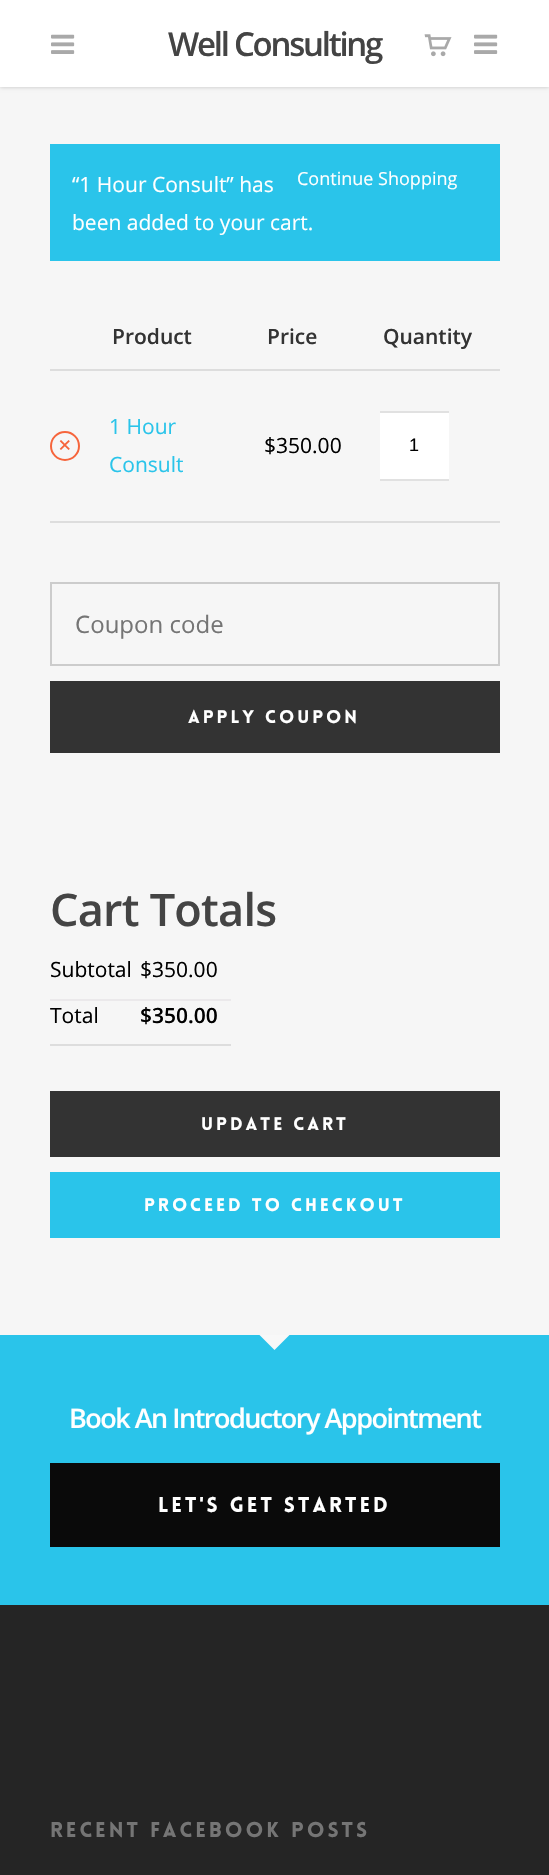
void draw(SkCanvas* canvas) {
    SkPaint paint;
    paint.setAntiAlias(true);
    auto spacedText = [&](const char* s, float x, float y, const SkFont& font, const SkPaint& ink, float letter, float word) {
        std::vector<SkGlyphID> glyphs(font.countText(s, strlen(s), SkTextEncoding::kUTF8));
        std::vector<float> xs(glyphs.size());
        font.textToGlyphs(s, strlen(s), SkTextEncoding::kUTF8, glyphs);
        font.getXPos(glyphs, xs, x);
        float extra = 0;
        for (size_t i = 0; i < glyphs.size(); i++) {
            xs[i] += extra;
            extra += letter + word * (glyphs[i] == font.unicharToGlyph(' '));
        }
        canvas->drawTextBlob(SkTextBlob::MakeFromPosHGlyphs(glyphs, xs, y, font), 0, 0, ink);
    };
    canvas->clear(0xFFF6F6F6);
    paint.setColor(0x38000000);
    paint.setMaskFilter(SkMaskFilter::MakeBlur(kNormal_SkBlurStyle, 2));
    canvas->drawRect(SkRect::MakeXYWH(0, 0, 549, 87), paint);
    paint.setMaskFilter(nullptr);
    paint.setColor(0xFFFFFFFF);
    canvas->drawRect(SkRect::MakeXYWH(0, 0, 549, 87), paint);
    SkFont font1(fontMgr->matchFamilyStyle("Open Sans", SkFontStyle(600, SkFontStyle::kNormal_Width, SkFontStyle::kUpright_Slant)), 33);
    font1.setSubpixel(true);
    paint.setColor(0xFF444444);
    spacedText("Well Consulting", 168, 56, font1, paint, -2.25f, 0);
    canvas->drawImageRect(SkImages::DeferredFromEncodedData(SkData::MakeFromFileName("img1.png")), SkRect::MakeXYWH(51, 34, 24, 20), SkSamplingOptions());
    canvas->drawImageRect(SkImages::DeferredFromEncodedData(SkData::MakeFromFileName("img2.png")), SkRect::MakeXYWH(424, 34, 28, 23), SkSamplingOptions());
    canvas->drawImageRect(SkImages::DeferredFromEncodedData(SkData::MakeFromFileName("img1.png")), SkRect::MakeXYWH(474, 34, 24, 20), SkSamplingOptions());
    paint.setColor(0xFF2AC4EA);
    canvas->drawRect(SkRect::MakeXYWH(50, 144, 450, 117), paint);
    SkFont font2(fontMgr->matchFamilyStyle("Open Sans", SkFontStyle::Normal()), 21);
    font2.setSubpixel(true);
    paint.setColor(0xFFFFFFFF);
    canvas->drawString("“1 Hour Consult” has", 72, 192, font2, paint);
    SkFont font3(fontMgr->matchFamilyStyle("Open Sans", SkFontStyle::Normal()), 18);
    font3.setSubpixel(true);
    canvas->drawString("Continue Shopping", 297, 185, font3, paint);
    canvas->drawString("been added to your cart.", 72, 230, font2, paint);
    SkFont font4(fontMgr->matchFamilyStyle("Open Sans", SkFontStyle(600, SkFontStyle::kNormal_Width, SkFontStyle::kUpright_Slant)), 21);
    font4.setSubpixel(true);
    paint.setColor(0xFF333333);
    canvas->drawString("Product", 112, 344, font4, paint);
    canvas->drawString("Price", 267, 344, font4, paint);
    canvas->drawString("Quantity", 383, 344, font4, paint);
    paint.setColor(0xFFDDDDDD);
    canvas->drawRect(SkRect::MakeXYWH(50, 369, 450, 2), paint);
    paint.setStyle(SkPaint::kStroke_Style);
    paint.setStrokeWidth(2);
    paint.setColor(0xFFF6653C);
    canvas->drawCircle(65, 446, 14, paint);
    SkFont font5(fontMgr->matchFamilyStyle("Liberation Serif", SkFontStyle::Bold()), 24);
    font5.setSubpixel(true);
    paint.setStyle(SkPaint::kFill_Style);
    canvas->drawString("×", 58, 453, font5, paint);
    paint.setColor(0xFF2AC4EA);
    canvas->drawString("1 Hour", 109, 434, font2, paint);
    canvas->drawString("Consult", 109, 472, font2, paint);
    paint.setColor(0xFF000000);
    canvas->drawString("$350.00", 264, 453, font2, paint);
    paint.setColor(0xFFFFFFFF);
    canvas->drawRect(SkRect::MakeXYWH(380, 413, 69, 66), paint);
    paint.setColor(0xFFE1E1E1);
    canvas->drawRect(SkRect::MakeXYWH(380, 411, 69, 2), paint);
    canvas->drawRect(SkRect::MakeXYWH(380, 479, 69, 2), paint);
    SkFont font6(fontMgr->matchFamilyStyle("Liberation Sans", SkFontStyle::Normal()), 18);
    font6.setSubpixel(true);
    paint.setColor(0xFF000000);
    canvas->drawString("1", 409, 451, font6, paint);
    paint.setColor(0xFFDDDDDD);
    canvas->drawRect(SkRect::MakeXYWH(50, 521, 450, 2), paint);
    paint.setStyle(SkPaint::kStroke_Style);
    paint.setColor(0xFFCCCCCC);
    canvas->drawRect(SkRect::MakeXYWH(51, 583, 448, 82), paint);
    SkFont font7(fontMgr->matchFamilyStyle("Open Sans", SkFontStyle::Normal()), 24);
    font7.setSubpixel(true);
    paint.setStyle(SkPaint::kFill_Style);
    paint.setColor(0xFF757575);
    canvas->drawString("Coupon code", 75, 633, font7, paint);
    paint.setColor(0xFF333333);
    canvas->drawRect(SkRect::MakeXYWH(50, 681, 450, 72), paint);
    SkFont font8(fontMgr->matchFamilyStyle("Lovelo", SkFontStyle(900, SkFontStyle::kNormal_Width, SkFontStyle::kUpright_Slant)), 18);
    font8.setSubpixel(true);
    paint.setColor(0xFFFFFFFF);
    spacedText("Apply Coupon", 188, 723, font8, paint, 3, 0);
    SkFont font9(fontMgr->matchFamilyStyle("Open Sans", SkFontStyle(600, SkFontStyle::kNormal_Width, SkFontStyle::kUpright_Slant)), 45);
    font9.setSubpixel(true);
    paint.setColor(0xFF444444);
    spacedText("Cart Totals", 50, 926, font9, paint, -0.75f, 0);
    paint.setColor(0xFF000000);
    canvas->drawString("Subtotal", 50, 977, font2, paint);
    canvas->drawString("$350.00", 140, 977, font2, paint);
    paint.setColor(0xFFDDDDDD);
    canvas->drawRect(SkRect::MakeXYWH(50, 1044, 181, 2), paint);
    paint.setColor(0xFFEBE9EB);
    canvas->drawRect(SkRect::MakeXYWH(50, 999, 181, 2), paint);
    paint.setColor(0xFF000000);
    canvas->drawString("Total", 50, 1023, font2, paint);
    canvas->drawString("$350.00", 140, 1023, font4, paint);
    paint.setColor(0xFF333333);
    canvas->drawRect(SkRect::MakeXYWH(50, 1091, 450, 66), paint);
    paint.setColor(0xFFFFFFFF);
    spacedText("Update Cart", 201, 1130, font8, paint, 3, 0);
    paint.setColor(0xFF2AC4EA);
    canvas->drawRect(SkRect::MakeXYWH(50, 1172, 450, 66), paint);
    paint.setColor(0xFFFFFFFF);
    spacedText("Proceed To Checkout", 144, 1211, font8, paint, 3, 0);
    paint.setColor(0xFF2AC4EA);
    canvas->drawRect(SkRect::MakeXYWH(0, 1335, 549, 270), paint);
    paint.setColor(0xFFF8F8F8);
    canvas->drawPath(SkPathBuilder().moveTo(259.5f, 1335).lineTo(289.5f, 1335).lineTo(274.5f, 1350).close().detach(), paint);
    SkFont font10(fontMgr->matchFamilyStyle("Open Sans", SkFontStyle(600, SkFontStyle::kNormal_Width, SkFontStyle::kUpright_Slant)), 27);
    font10.setSubpixel(true);
    paint.setColor(0xFFFFFFFF);
    spacedText("Book An Introductory Appointment", 69, 1428, font10, paint, -1.5f, 0);
    paint.setColor(0xFF0A0A0A);
    canvas->drawRect(SkRect::MakeXYWH(50, 1463, 450, 84), paint);
    SkFont font11(fontMgr->matchFamilyStyle("Lovelo", SkFontStyle(900, SkFontStyle::kNormal_Width, SkFontStyle::kUpright_Slant)), 21);
    font11.setSubpixel(true);
    paint.setColor(0xFFFFFFFF);
    spacedText("LET'S GET STARTED", 158, 1512, font11, paint, 3, 0);
    paint.setColor(0xFF252525);
    canvas->drawRect(SkRect::MakeXYWH(0, 1605, 549, 270), paint);
    paint.setColor(0xFF757575);
    spacedText("RECENT FACEBOOK POSTS", 50, 1837, font11, paint, 3, 0);
}
